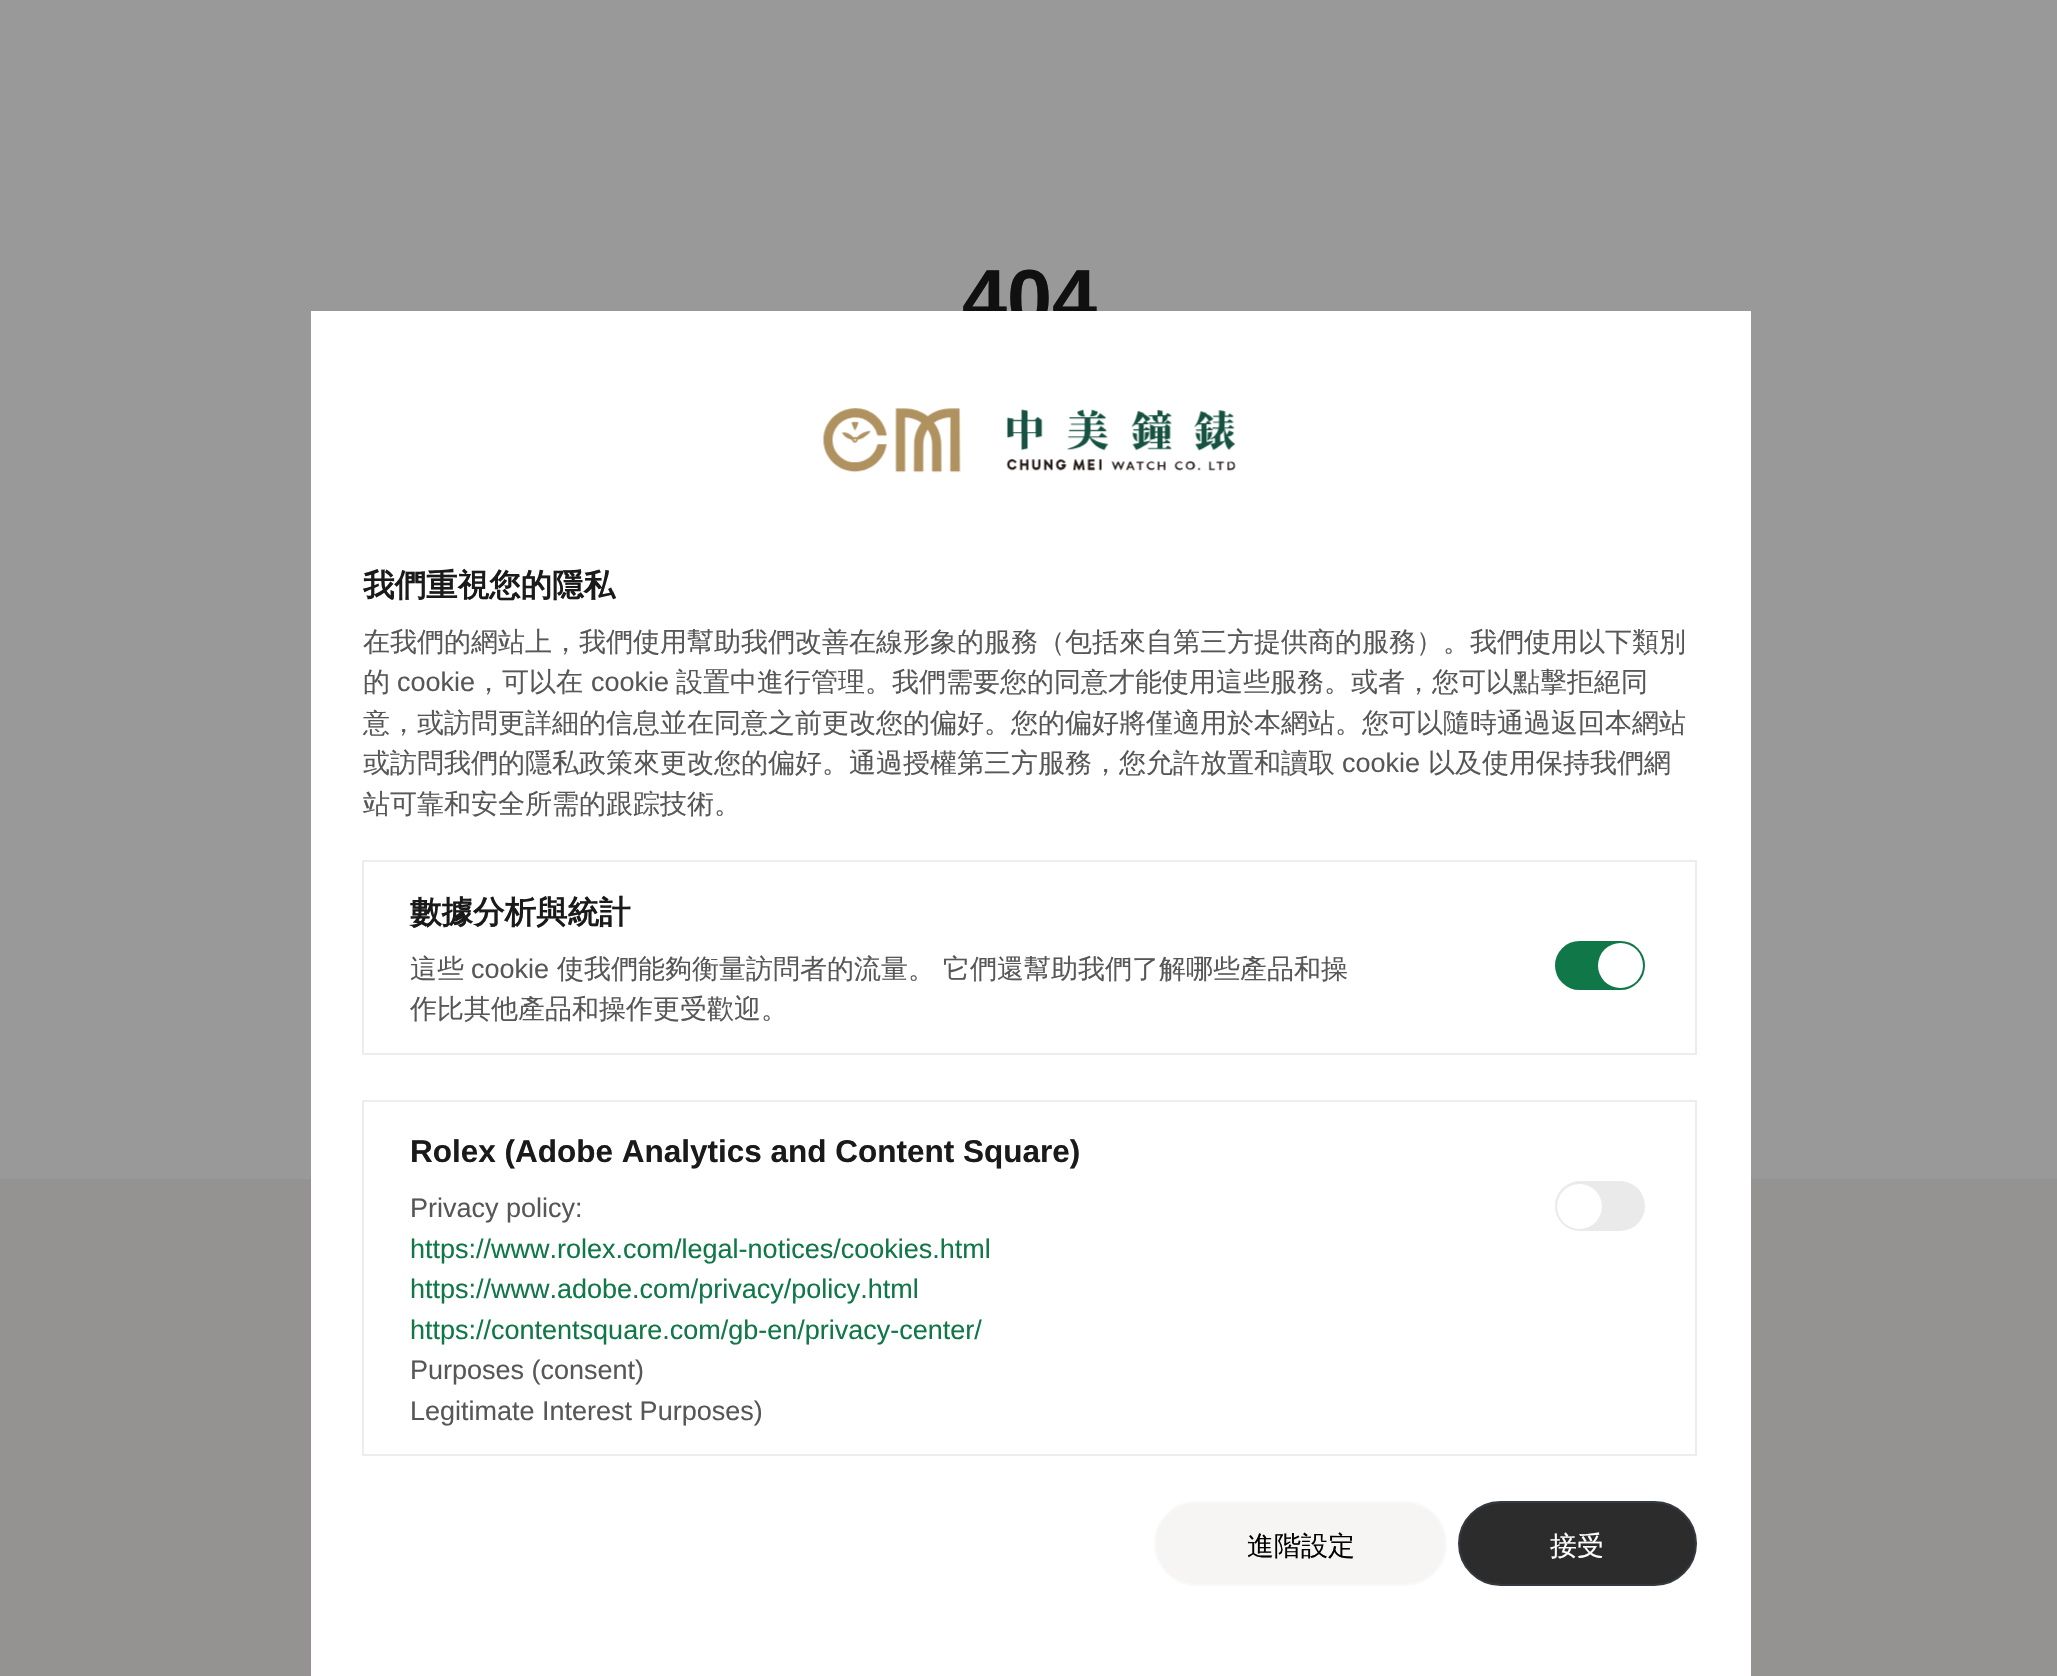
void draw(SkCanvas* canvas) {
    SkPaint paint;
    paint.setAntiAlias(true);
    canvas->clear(0xFF999999);
    SkFont font1(fontMgr->matchFamilyStyle("Liberation Sans", SkFontStyle::Bold()), 81);
    font1.setSubpixel(true);
    paint.setColor(0xFF101010);
    canvas->drawString("404", 962, 326, font1, paint);
    paint.setColor(0xFF949392);
    canvas->drawRect(SkRect::MakeXYWH(0, 1179, 2057, 497), paint);
    paint.setColor(0xFFFFFFFF);
    canvas->drawRect(SkRect::MakeXYWH(311, 311, 1440, 1365), paint);
    canvas->drawImageRect(SkImages::DeferredFromEncodedData(SkData::MakeFromFileName("img1.png")), SkRect::MakeXYWH(823, 408, 413, 65), SkSamplingOptions());
    SkFont font2(fontMgr->matchFamilyStyle("WenQuanYi Zen Hei", SkFontStyle::Bold()), 31.5f);
    font2.setSubpixel(true);
    paint.setColor(0xFF1A1A1A);
    canvas->drawString("我們重視您的隱私", 363, 596, font2, paint);
    SkFont font3(fontMgr->matchFamilyStyle("WenQuanYi Zen Hei", SkFontStyle(500, SkFontStyle::kNormal_Width, SkFontStyle::kUpright_Slant)), 27);
    font3.setSubpixel(true);
    paint.setColor(0xFF575757);
    canvas->drawString("在我們的網站上，我們使用幫助我們改善在線形象的服務（包括來自第三方提供商的服務）。我們使用以下類別", 363, 651, font3, paint);
    canvas->drawString("的", 363, 691, font3, paint);
    SkFont font4(fontMgr->matchFamilyStyle("Liberation Sans", SkFontStyle::Normal()), 27);
    font4.setSubpixel(true);
    canvas->drawString("cookie", 397, 691, font4, paint);
    canvas->drawString("，可以在", 475, 691, font3, paint);
    canvas->drawString("cookie", 591, 691, font4, paint);
    canvas->drawString("設置中進行管理。我們需要您的同意才能使用這些服務。或者，您可以點擊拒絕同", 676, 691, font3, paint);
    canvas->drawString("意，或訪問更詳細的信息並在同意之前更改您的偏好。您的偏好將僅適用於本網站。您可以隨時通過返回本網站", 363, 732, font3, paint);
    canvas->drawString("或訪問我們的隱私政策來更改您的偏好。通過授權第三方服務，您允許放置和讀取", 363, 772, font3, paint);
    canvas->drawString("cookie", 1342, 772, font4, paint);
    canvas->drawString("以及使用保持我們網", 1428, 772, font3, paint);
    canvas->drawString("站可靠和安全所需的跟踪技術。", 363, 813, font3, paint);
    paint.setStyle(SkPaint::kStroke_Style);
    paint.setStrokeWidth(2);
    paint.setColor(0xFFEDEDED);
    canvas->drawRect(SkRect::MakeXYWH(363, 861, 1333, 193), paint);
    paint.setStyle(SkPaint::kFill_Style);
    paint.setColor(0xFF1A1A1A);
    canvas->drawString("數據分析與統計", 410, 923, font2, paint);
    paint.setColor(0xFF575757);
    canvas->drawString("這些", 410, 978, font3, paint);
    canvas->drawString("cookie", 471, 978, font4, paint);
    canvas->drawString("使我們能夠衡量訪問者的流量。 它們還幫助我們了解哪些產品和操", 557, 978, font3, paint);
    canvas->drawString("作比其他產品和操作更受歡迎。", 410, 1018, font3, paint);
    paint.setColor(0xFF107748);
    canvas->drawRoundRect(SkRect::MakeXYWH(1555, 941, 90, 49), 24.5f, 24.5f, paint);
    paint.setColor(0xFFFFFFFF);
    canvas->drawCircle(1620.5f, 965.5f, 22.5f, paint);
    paint.setStyle(SkPaint::kStroke_Style);
    paint.setColor(0xFFEDEDED);
    canvas->drawRect(SkRect::MakeXYWH(363, 1101, 1333, 354), paint);
    SkFont font5(fontMgr->matchFamilyStyle("Liberation Sans", SkFontStyle::Bold()), 31.5f);
    font5.setSubpixel(true);
    paint.setStyle(SkPaint::kFill_Style);
    paint.setColor(0xFF1A1A1A);
    canvas->drawString("Rolex (Adobe Analytics and Content Square)", 410, 1162, font5, paint);
    paint.setColor(0xFF575757);
    canvas->drawString("Privacy policy:", 410, 1217, font4, paint);
    paint.setColor(0xFF107748);
    canvas->drawString("https://www.rolex.com/legal-notices/cookies.html", 410, 1258, font4, paint);
    canvas->drawString("https://www.adobe.com/privacy/policy.html", 410, 1298, font4, paint);
    canvas->drawString("https://contentsquare.com/gb-en/privacy-center/", 410, 1339, font4, paint);
    paint.setColor(0xFF575757);
    canvas->drawString("Purposes (consent)", 410, 1379, font4, paint);
    canvas->drawString("Legitimate Interest Purposes)", 410, 1420, font4, paint);
    paint.setColor(0xFFEAEAEA);
    canvas->drawRoundRect(SkRect::MakeXYWH(1555, 1181, 90, 50), 25, 25, paint);
    paint.setColor(0xFFFFFFFF);
    canvas->drawCircle(1579.5f, 1206.5f, 22.5f, paint);
    paint.setColor(0xFFF6F5F3);
    canvas->drawRoundRect(SkRect::MakeXYWH(1155, 1502, 291, 83), 41.5f, 41.5f, paint);
    paint.setStyle(SkPaint::kStroke_Style);
    paint.setColor(0xFFF8F9FA);
    canvas->drawRoundRect(SkRect::MakeXYWH(1155, 1502, 291, 83), 41.5f, 41.5f, paint);
    paint.setStyle(SkPaint::kFill_Style);
    paint.setColor(0xFF000000);
    canvas->drawString("進階設定", 1247, 1555, font3, paint);
    paint.setColor(0xFF2C2C2C);
    canvas->drawRoundRect(SkRect::MakeXYWH(1459, 1502, 237, 83), 41.5f, 41.5f, paint);
    paint.setStyle(SkPaint::kStroke_Style);
    paint.setColor(0xFF343A40);
    canvas->drawRoundRect(SkRect::MakeXYWH(1459, 1502, 237, 83), 41.5f, 41.5f, paint);
    paint.setStyle(SkPaint::kFill_Style);
    paint.setColor(0xFFFFFFFF);
    canvas->drawString("接受", 1550, 1555, font3, paint);
}
